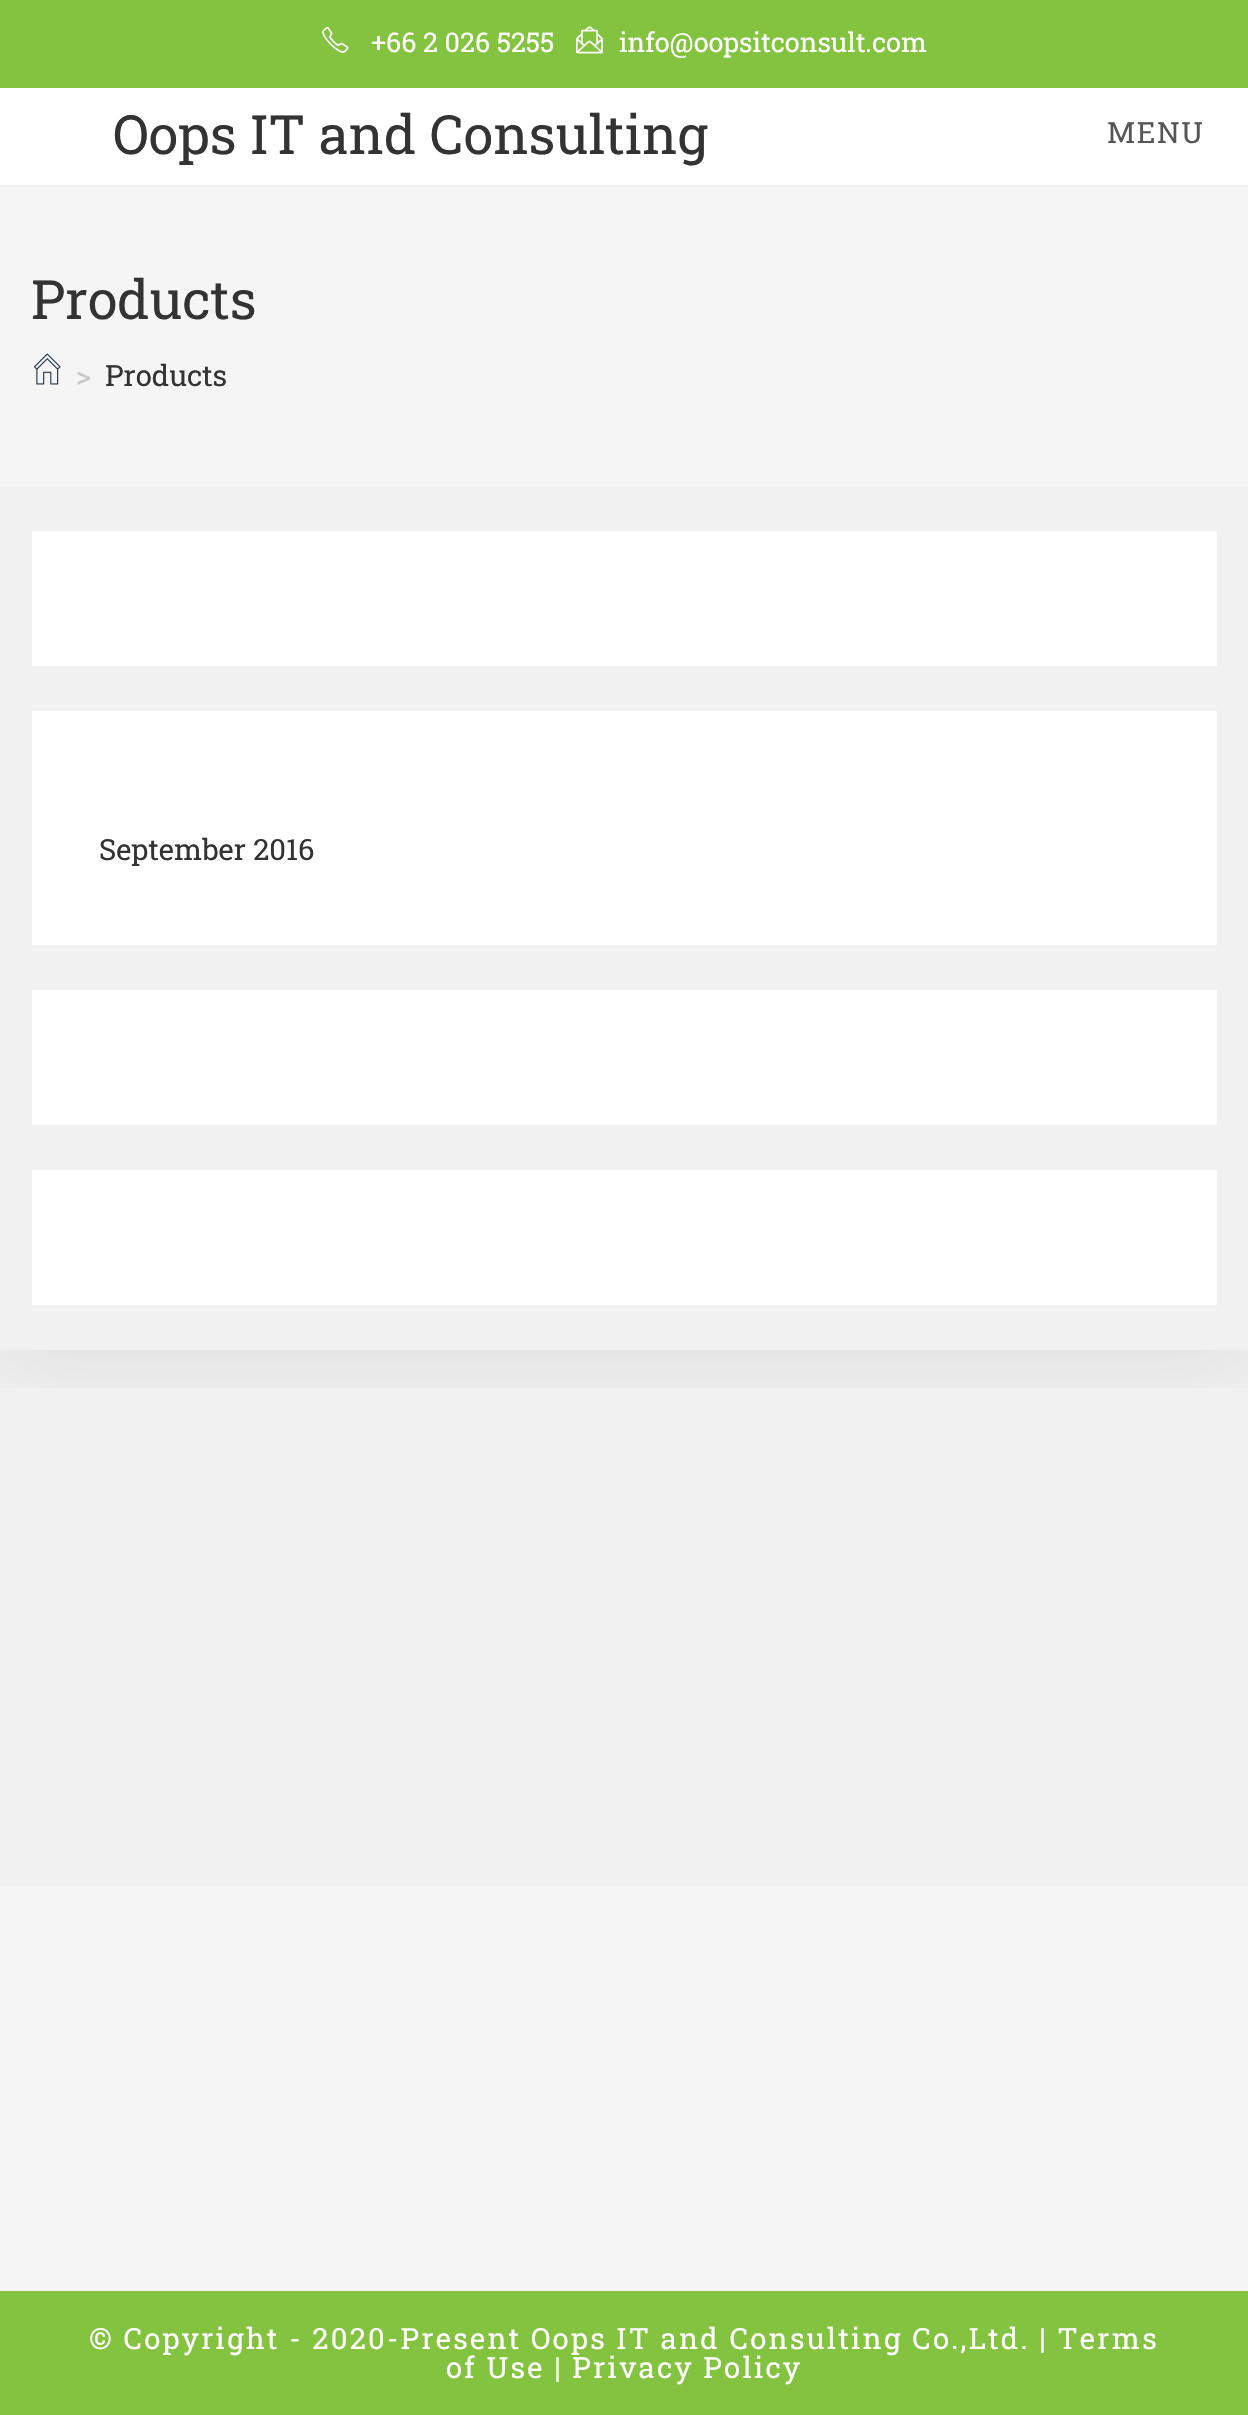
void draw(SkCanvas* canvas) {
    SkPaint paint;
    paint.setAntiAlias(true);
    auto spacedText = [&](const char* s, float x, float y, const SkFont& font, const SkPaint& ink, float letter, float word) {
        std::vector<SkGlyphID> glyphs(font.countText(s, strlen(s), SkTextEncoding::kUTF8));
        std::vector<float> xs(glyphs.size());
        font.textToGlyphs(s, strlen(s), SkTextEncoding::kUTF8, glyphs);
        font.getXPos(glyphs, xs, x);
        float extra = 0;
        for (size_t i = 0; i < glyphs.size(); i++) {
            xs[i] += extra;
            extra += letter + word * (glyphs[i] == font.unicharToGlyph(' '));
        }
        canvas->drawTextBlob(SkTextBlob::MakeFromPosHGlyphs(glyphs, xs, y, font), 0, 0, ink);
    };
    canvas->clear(0xFFF1F1F1);
    canvas->save();
    canvas->clipRect(SkRect::MakeXYWH(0, 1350, 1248, 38));
    paint.setColor(0x1A000000);
    paint.setMaskFilter(SkMaskFilter::MakeBlur(kNormal_SkBlurStyle, 45));
    canvas->drawRect(SkRect::MakeXYWH(0, 187, 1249, 1163), paint);
    paint.setMaskFilter(nullptr);
    canvas->restore();
    paint.setColor(0xFF84C340);
    canvas->drawRect(SkRect::MakeXYWH(0, 0, 1248, 88), paint);
    canvas->drawImageRect(SkImages::DeferredFromEncodedData(SkData::MakeFromFileName("img1.png")), SkRect::MakeXYWH(322, 26, 27, 27), SkSamplingOptions());
    SkFont font1(fontMgr->matchFamilyStyle("Roboto Slab", SkFontStyle::Normal()), 27);
    font1.setSubpixel(true);
    paint.setColor(0xFFFFFFFF);
    canvas->drawString("+66 2 026 5255", 371, 52, font1, paint);
    canvas->drawImageRect(SkImages::DeferredFromEncodedData(SkData::MakeFromFileName("img2.png")), SkRect::MakeXYWH(576, 26, 27, 28), SkSamplingOptions());
    canvas->drawString("info@oopsitconsult.com", 619, 52, font1, paint);
    canvas->drawRect(SkRect::MakeXYWH(0, 88, 1248, 97), paint);
    paint.setColor(0xFFF1F1F1);
    canvas->drawRect(SkRect::MakeXYWH(0, 185, 1248, 2), paint);
    SkFont font2(fontMgr->matchFamilyStyle("Roboto Slab", SkFontStyle::Normal()), 54);
    font2.setSubpixel(true);
    paint.setColor(0xFF333333);
    canvas->drawString("Oops IT and Consulting", 113, 154, font2, paint);
    SkFont font3(fontMgr->matchFamilyStyle("Roboto Slab", SkFontStyle::Normal()), 29.25f);
    font3.setSubpixel(true);
    paint.setColor(0xFF555555);
    spacedText("MENU", 1107, 143, font3, paint, 1.5f, 0);
    paint.setColor(0xFFF5F5F5);
    canvas->drawRect(SkRect::MakeXYWH(0, 187, 1248, 299), paint);
    paint.setColor(0xFF333333);
    canvas->drawString("Products", 31, 319, font2, paint);
    canvas->drawImageRect(SkImages::DeferredFromEncodedData(SkData::MakeFromFileName("img3.png")), SkRect::MakeXYWH(34, 353, 27, 32), SkSamplingOptions());
    paint.setColor(0xFFC6C6C6);
    canvas->drawString(">", 76, 386, font3, paint);
    paint.setColor(0xFF333333);
    canvas->drawString("Products", 105, 386, font3, paint);
    paint.setColor(0xFFFFFFFF);
    canvas->drawRect(SkRect::MakeXYWH(32, 531, 1185, 135), paint);
    canvas->drawRect(SkRect::MakeXYWH(32, 711, 1185, 234), paint);
    paint.setColor(0xFF333333);
    canvas->drawString("September 2016", 99, 860, font3, paint);
    paint.setColor(0xFFFFFFFF);
    canvas->drawRect(SkRect::MakeXYWH(32, 990, 1185, 135), paint);
    canvas->drawRect(SkRect::MakeXYWH(32, 1170, 1185, 135), paint);
    paint.setColor(0xFFF5F5F5);
    canvas->drawRect(SkRect::MakeXYWH(0, 1886, 1248, 405), paint);
    paint.setColor(0xFF84C340);
    canvas->drawRect(SkRect::MakeXYWH(0, 2291, 1248, 124), paint);
    paint.setColor(0xFFFFFFFF);
    spacedText("© Copyright - 2020-Present Oops IT and Consulting Co.,Ltd. | Terms", 89, 2349, font3, paint, 2.25f, 0);
    spacedText("of Use | Privacy Policy", 446, 2378, font3, paint, 2.25f, 0);
}
